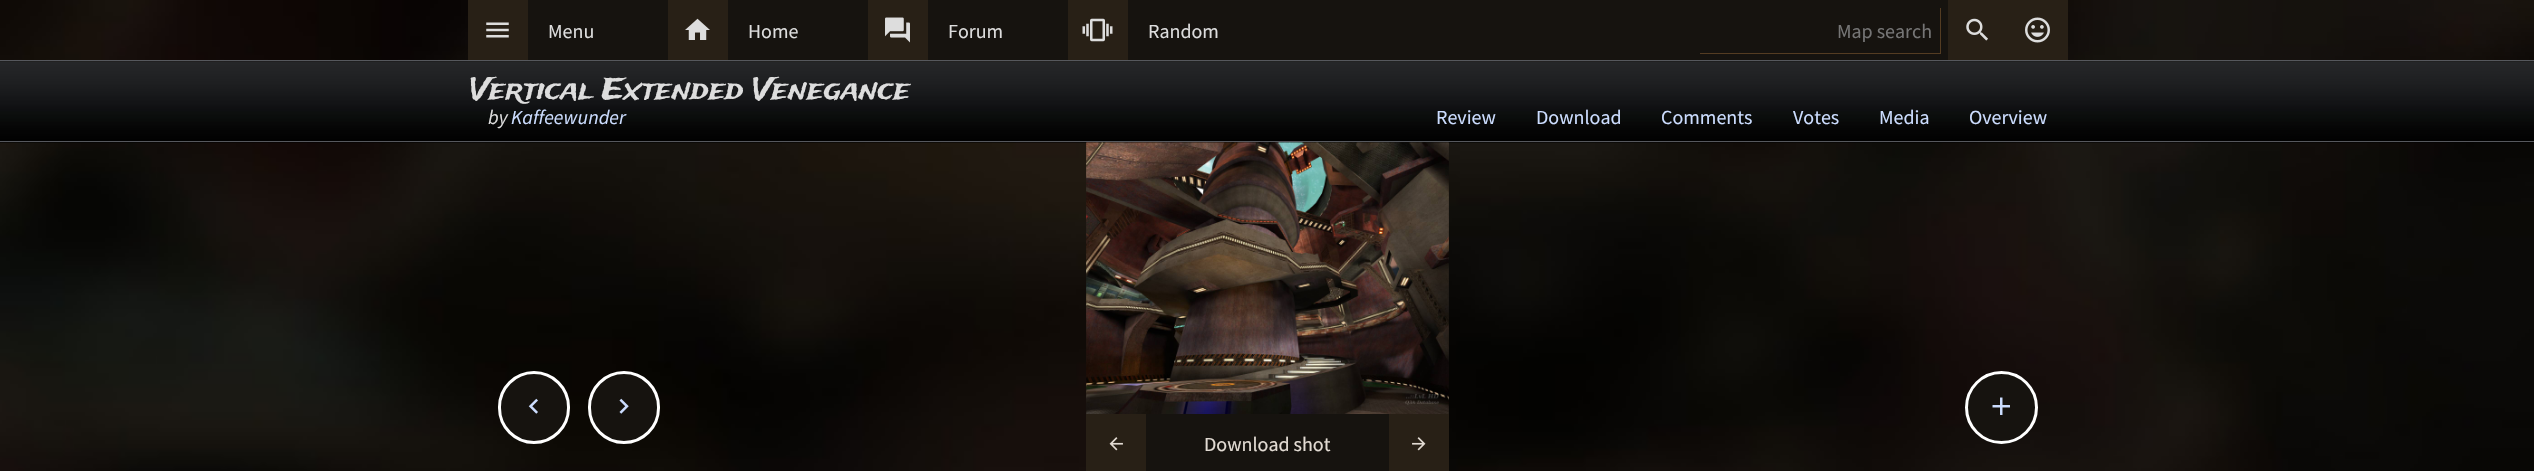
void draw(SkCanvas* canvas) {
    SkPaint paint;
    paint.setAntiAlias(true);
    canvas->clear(0xFFFFFFFF);
    canvas->drawImageRect(SkImages::DeferredFromEncodedData(SkData::MakeFromFileName("img1.png")), SkRect::MakeXYWH(0, 0, 2534, 471), SkSamplingOptions());
    paint.setColor(0xFF16130F);
    canvas->drawRect(SkRect::MakeXYWH(528, 0, 1420, 60), paint);
    paint.setColor(0xFF282016);
    canvas->drawRect(SkRect::MakeXYWH(468, 0, 60, 60), paint);
    canvas->drawImageRect(SkImages::DeferredFromEncodedData(SkData::MakeFromFileName("img2.png")), SkRect::MakeXYWH(486, 22, 23, 16), SkSamplingOptions());
    SkFont font1(fontMgr->matchFamilyStyle("Source Sans Pro", SkFontStyle::Normal()), 20);
    font1.setSubpixel(true);
    paint.setColor(0xFFDDDDDD);
    canvas->drawString("Menu", 548, 38, font1, paint);
    paint.setColor(0xFF282016);
    canvas->drawRect(SkRect::MakeXYWH(668, 0, 60, 60), paint);
    canvas->drawImageRect(SkImages::DeferredFromEncodedData(SkData::MakeFromFileName("img3.png")), SkRect::MakeXYWH(685, 18, 25, 22), SkSamplingOptions());
    paint.setColor(0xFFDDDDDD);
    canvas->drawString("Home", 748, 38, font1, paint);
    paint.setColor(0xFF282016);
    canvas->drawRect(SkRect::MakeXYWH(868, 0, 60, 60), paint);
    canvas->drawImageRect(SkImages::DeferredFromEncodedData(SkData::MakeFromFileName("img4.png")), SkRect::MakeXYWH(885, 17, 25, 26), SkSamplingOptions());
    paint.setColor(0xFFDDDDDD);
    canvas->drawString("Forum", 948, 38, font1, paint);
    paint.setColor(0xFF282016);
    canvas->drawRect(SkRect::MakeXYWH(1068, 0, 60, 60), paint);
    canvas->drawImageRect(SkImages::DeferredFromEncodedData(SkData::MakeFromFileName("img5.png")), SkRect::MakeXYWH(1082, 18, 31, 24), SkSamplingOptions());
    paint.setColor(0xFFDDDDDD);
    canvas->drawString("Random", 1148, 38, font1, paint);
    paint.setColor(0xFF543C22);
    canvas->drawRect(SkRect::MakeXYWH(1940, 8, 1, 46), paint);
    canvas->drawRect(SkRect::MakeXYWH(1700, 53, 241, 1), paint);
    paint.setColor(0xFF757575);
    canvas->drawString("Map search", 1837, 38, font1, paint);
    paint.setColor(0xFF282016);
    canvas->drawRect(SkRect::MakeXYWH(1948, 0, 120, 60), paint);
    canvas->drawImageRect(SkImages::DeferredFromEncodedData(SkData::MakeFromFileName("img6.png")), SkRect::MakeXYWH(1966, 18, 22, 23), SkSamplingOptions());
    canvas->drawImageRect(SkImages::DeferredFromEncodedData(SkData::MakeFromFileName("img7.png")), SkRect::MakeXYWH(2025, 17, 25, 26), SkSamplingOptions());
    canvas->drawImageRect(SkImages::DeferredFromEncodedData(SkData::MakeFromFileName("img8.png")), SkRect::MakeXYWH(0, 61, 2534, 82), SkSamplingOptions());
    paint.setColor(0xFF56585D);
    canvas->drawRect(SkRect::MakeXYWH(0, 60, 2534, 1), paint);
    canvas->drawRect(SkRect::MakeXYWH(0, 141, 2534, 1), paint);
    SkFont font2(fontMgr->matchFamilyStyle("Trade Winds", SkFontStyle::Normal()), 30);
    font2.setSubpixel(true);
    paint.setColor(0xFFDDDDDD);
    canvas->drawString("Vertical Extended Venegance", 470, 99, font2, paint);
    SkFont font3(fontMgr->matchFamilyStyle("Source Sans Pro", SkFontStyle::Italic()), 20);
    font3.setSubpixel(true);
    canvas->drawString("by", 488, 124, font3, paint);
    paint.setColor(0xFFCCDDFF);
    canvas->drawString("Kaffeewunder", 511, 124, font3, paint);
    canvas->drawString("Review", 1436, 124, font1, paint);
    canvas->drawString("Download", 1536, 124, font1, paint);
    canvas->drawString("Comments", 1661, 124, font1, paint);
    canvas->drawString("Votes", 1793, 124, font1, paint);
    canvas->drawString("Media", 1879, 124, font1, paint);
    canvas->drawString("Overview", 1969, 124, font1, paint);
    paint.setColor(0xFF16130F);
    canvas->drawRoundRect(SkRect::MakeXYWH(499.5f, 372.5f, 69, 70), 34.5f, 34.5f, paint);
    paint.setStyle(SkPaint::kStroke_Style);
    paint.setStrokeWidth(3);
    paint.setColor(0xFFFFFFFF);
    canvas->drawRoundRect(SkRect::MakeXYWH(499.5f, 372.5f, 69, 70), 34.5f, 34.5f, paint);
    canvas->drawImageRect(SkImages::DeferredFromEncodedData(SkData::MakeFromFileName("img9.png")), SkRect::MakeXYWH(528, 398, 10, 16), SkSamplingOptions());
    paint.setStyle(SkPaint::kFill_Style);
    paint.setColor(0xFF16130F);
    canvas->drawRoundRect(SkRect::MakeXYWH(589.5f, 372.5f, 69, 70), 34.5f, 34.5f, paint);
    paint.setStyle(SkPaint::kStroke_Style);
    paint.setColor(0xFFFFFFFF);
    canvas->drawRoundRect(SkRect::MakeXYWH(589.5f, 372.5f, 69, 70), 34.5f, 34.5f, paint);
    canvas->drawImageRect(SkImages::DeferredFromEncodedData(SkData::MakeFromFileName("img10.png")), SkRect::MakeXYWH(619, 398, 10, 16), SkSamplingOptions());
    paint.setStyle(SkPaint::kFill_Style);
    paint.setColor(0xFF16130F);
    canvas->drawCircle(2001.5f, 407.5f, 35, paint);
    paint.setStyle(SkPaint::kStroke_Style);
    paint.setColor(0xFFFFFFFF);
    canvas->drawCircle(2001.5f, 407.5f, 35, paint);
    canvas->drawImageRect(SkImages::DeferredFromEncodedData(SkData::MakeFromFileName("img11.png")), SkRect::MakeXYWH(1992, 397, 18, 18), SkSamplingOptions());
    canvas->drawImageRect(SkImages::DeferredFromEncodedData(SkData::MakeFromFileName("img12.png")), SkRect::MakeXYWH(1086, 142, 363, 272), SkSamplingOptions());
    canvas->drawImageRect(SkImages::DeferredFromEncodedData(SkData::MakeFromFileName("img13.png")), SkRect::MakeXYWH(1086, 142, 363, 272), SkSamplingOptions());
    paint.setStyle(SkPaint::kFill_Style);
    paint.setColor(0xFF16130F);
    canvas->drawRect(SkRect::MakeXYWH(1146, 414, 243, 57), paint);
    paint.setColor(0xFF282016);
    canvas->drawRect(SkRect::MakeXYWH(1086, 414, 60, 57), paint);
    canvas->drawImageRect(SkImages::DeferredFromEncodedData(SkData::MakeFromFileName("img14.png")), SkRect::MakeXYWH(1109, 437, 14, 14), SkSamplingOptions());
    paint.setColor(0xFFE2DBD3);
    canvas->drawString("Download shot", 1204, 451, font1, paint);
    paint.setColor(0xFF282016);
    canvas->drawRect(SkRect::MakeXYWH(1389, 414, 60, 57), paint);
    canvas->drawImageRect(SkImages::DeferredFromEncodedData(SkData::MakeFromFileName("img15.png")), SkRect::MakeXYWH(1412, 437, 14, 14), SkSamplingOptions());
}
